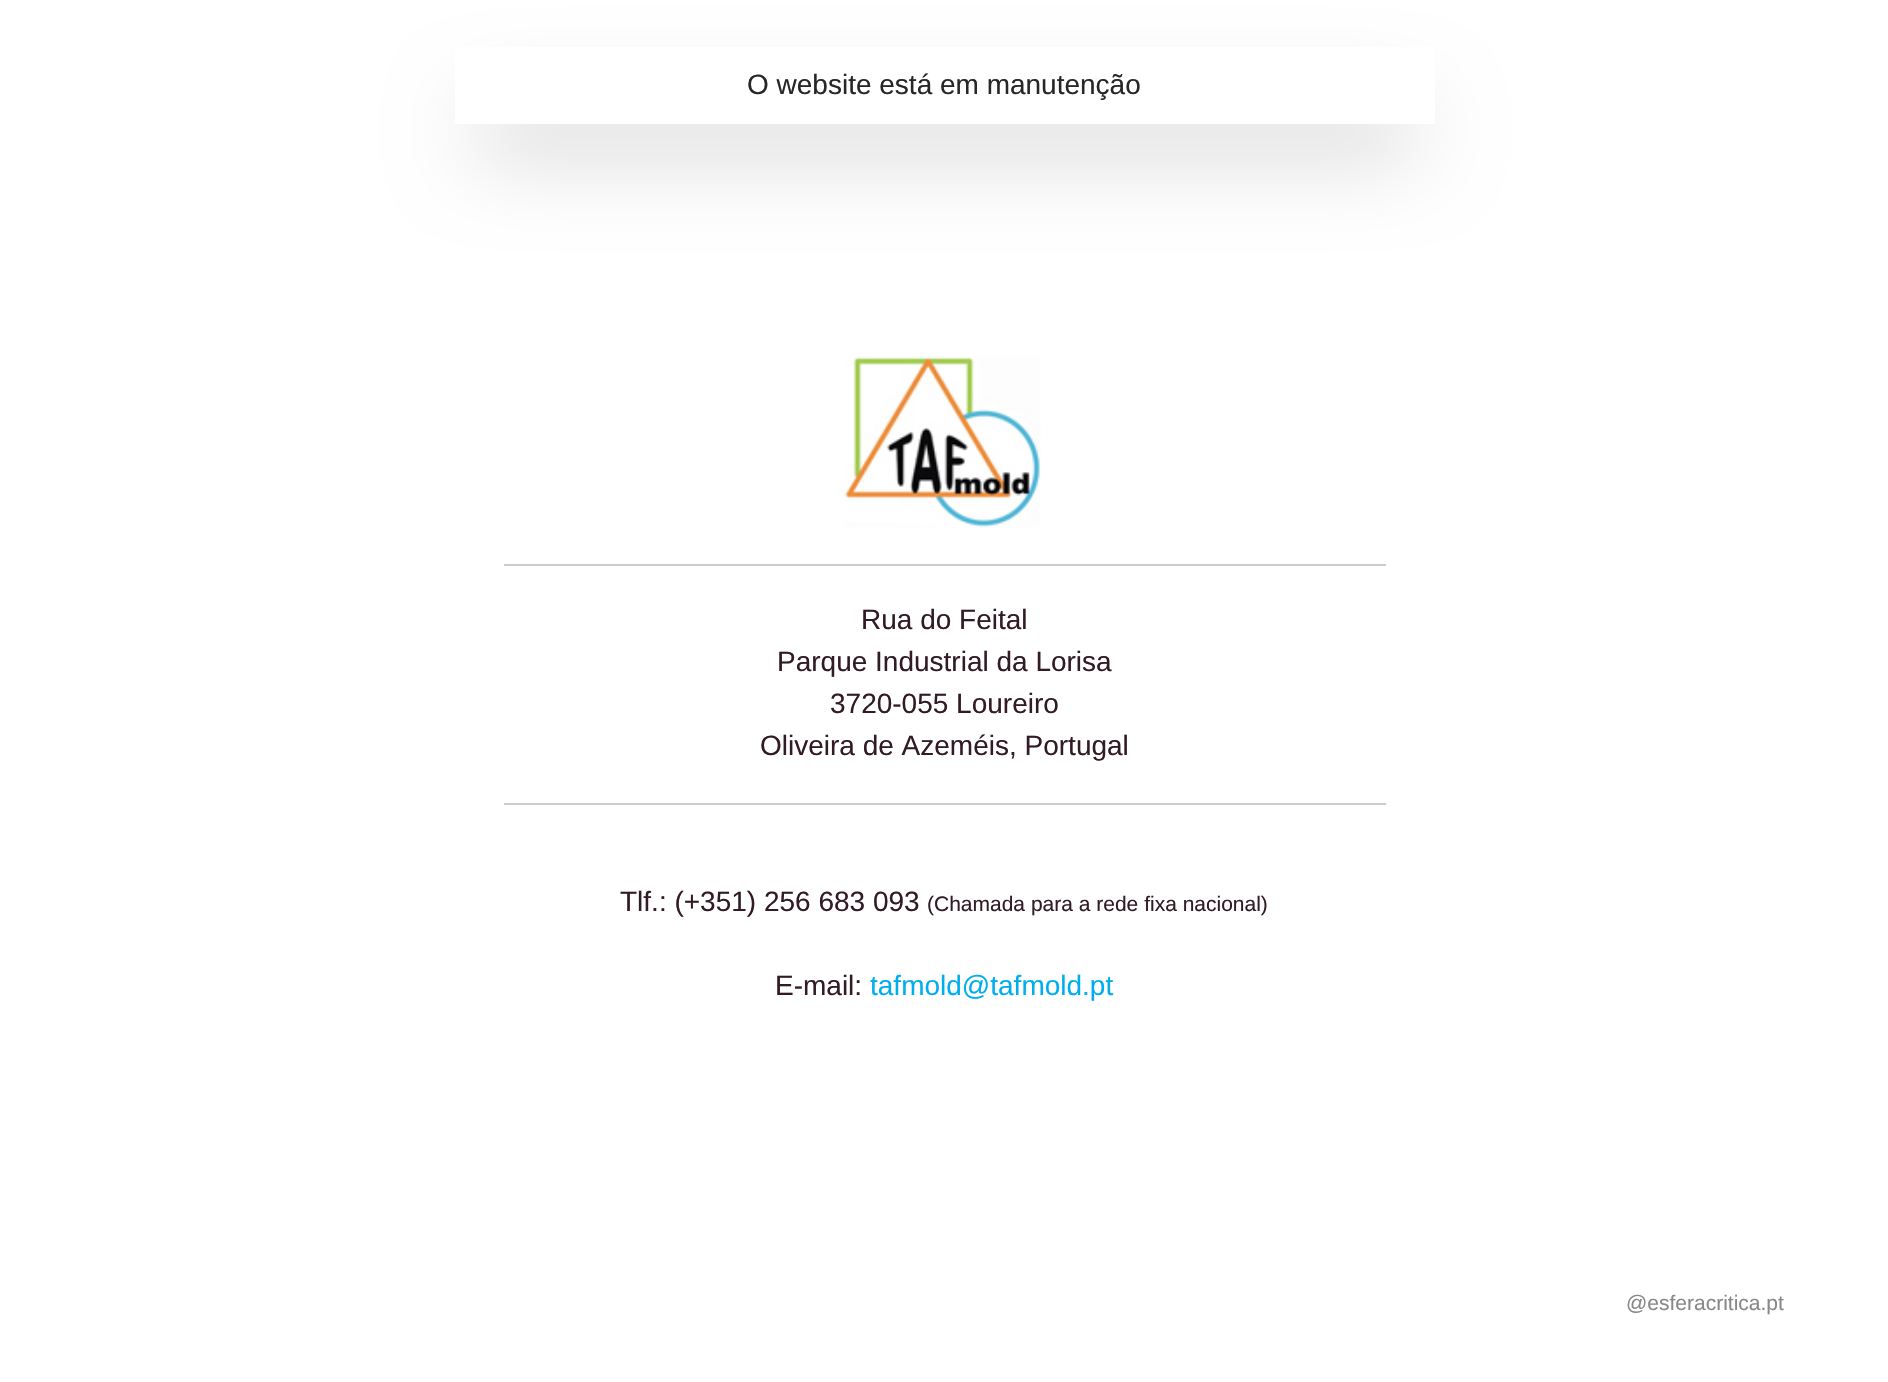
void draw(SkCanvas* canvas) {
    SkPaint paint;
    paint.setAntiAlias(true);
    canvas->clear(0xFFFFFFFF);
    canvas->save();
    canvas->clipPath(SkPathBuilder(SkPathFillType::kEvenOdd).moveTo(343, 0).lineTo(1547, 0).lineTo(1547, 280).lineTo(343, 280).close().moveTo(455, 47).lineTo(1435, 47).lineTo(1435, 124).lineTo(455, 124).close().detach(), true);
    paint.setColor(0x40000000);
    paint.setMaskFilter(SkMaskFilter::MakeBlur(kNormal_SkBlurStyle, 44));
    canvas->drawRect(SkRect::MakeXYWH(476, 112, 938, 35), paint);
    paint.setMaskFilter(nullptr);
    canvas->restore();
    SkFont font1(fontMgr->matchFamilyStyle("Liberation Sans", SkFontStyle::Normal()), 28);
    font1.setSubpixel(true);
    paint.setColor(0xFF272727);
    canvas->drawString("O website está em manutenção", 747, 94, font1, paint);
    canvas->drawImageRect(SkImages::DeferredFromEncodedData(SkData::MakeFromFileName("img1.png")), SkRect::MakeXYWH(845, 356, 196, 172), SkSamplingOptions());
    paint.setColor(0xFFCCCCCC);
    canvas->drawRect(SkRect::MakeXYWH(504, 564, 882, 2), paint);
    paint.setColor(0xFF321B26);
    canvas->drawString("Rua do Feital", 861, 629, font1, paint);
    canvas->drawString("Parque Industrial da Lorisa", 777, 671, font1, paint);
    canvas->drawString("3720-055 Loureiro", 830, 713, font1, paint);
    canvas->drawString("Oliveira de Azeméis, Portugal", 760, 755, font1, paint);
    paint.setColor(0xFFCCCCCC);
    canvas->drawRect(SkRect::MakeXYWH(504, 803, 882, 2), paint);
    paint.setColor(0xFF321B26);
    canvas->drawString("Tlf.: (+351) 256 683 093", 620, 911, font1, paint);
    SkFont font2(fontMgr->matchFamilyStyle("Liberation Sans", SkFontStyle::Normal()), 21);
    font2.setSubpixel(true);
    canvas->drawString("(Chamada para a rede fixa nacional)", 927, 911, font2, paint);
    canvas->drawString("E-mail:", 775, 995, font1, paint);
    paint.setColor(0xFF00AEEF);
    canvas->drawString("tafmold@tafmold.pt", 870, 995, font1, paint);
    paint.setColor(0xFF888888);
    canvas->drawString("@esferacritica.pt", 1626, 1310, font2, paint);
}
